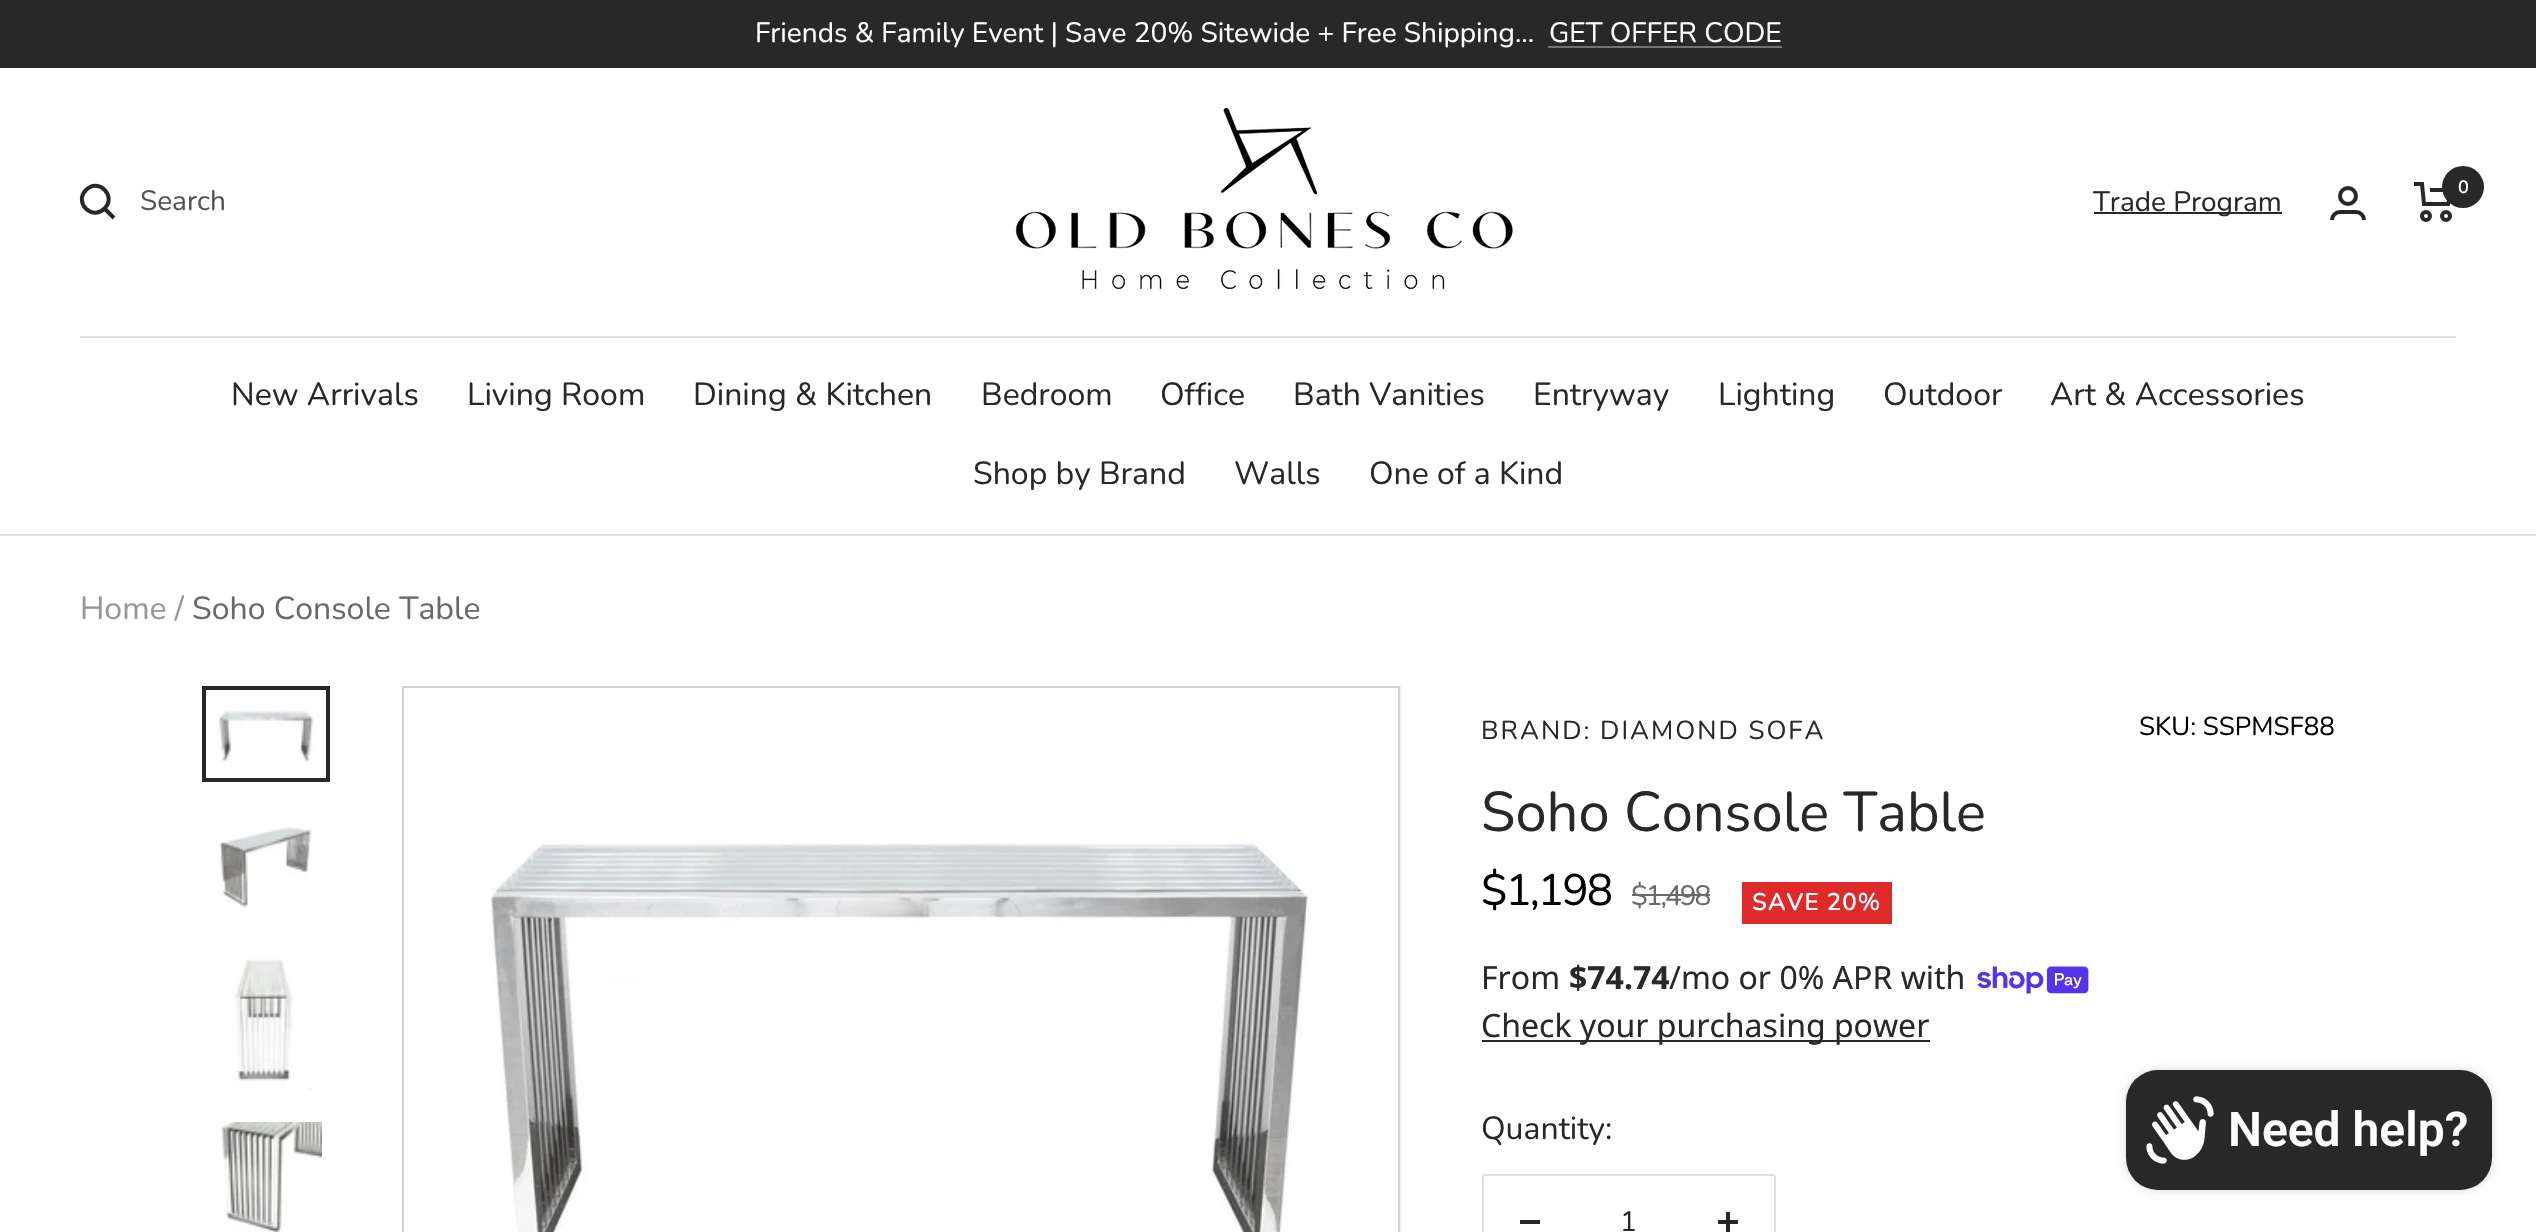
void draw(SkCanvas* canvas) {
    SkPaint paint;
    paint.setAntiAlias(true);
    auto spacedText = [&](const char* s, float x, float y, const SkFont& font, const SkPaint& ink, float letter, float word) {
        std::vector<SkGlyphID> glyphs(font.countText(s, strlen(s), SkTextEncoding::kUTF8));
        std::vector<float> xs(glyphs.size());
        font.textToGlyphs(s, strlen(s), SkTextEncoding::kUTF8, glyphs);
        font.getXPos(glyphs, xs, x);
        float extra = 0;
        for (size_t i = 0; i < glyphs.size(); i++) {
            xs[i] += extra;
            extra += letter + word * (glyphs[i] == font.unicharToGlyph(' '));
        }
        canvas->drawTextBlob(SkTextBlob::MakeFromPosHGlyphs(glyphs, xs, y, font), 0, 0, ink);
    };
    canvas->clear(0xFFFFFFFF);
    paint.setColor(0xFF282828);
    canvas->drawRect(SkRect::MakeXYWH(0, 0, 2536, 68), paint);
    SkFont font1(fontMgr->matchFamilyStyle("Nunito", SkFontStyle::Normal()), 28);
    font1.setSubpixel(true);
    paint.setColor(0xFFFFFFFF);
    canvas->drawString("Friends & Family Event | Save 20% Sitewide + Free Shipping...", 755, 42, font1, paint);
    canvas->drawString("GET OFFER CODE", 1549, 42, font1, paint);
    paint.setColor(0xFF737373);
    canvas->drawRect(SkRect::MakeXYWH(1548, 46, 234, 2), paint);
    paint.setColor(0xFFDFDFDF);
    canvas->drawRect(SkRect::MakeXYWH(0, 534, 2536, 2), paint);
    paint.setStyle(SkPaint::kStroke_Style);
    paint.setStrokeWidth(4);
    paint.setColor(0xFF282828);
    canvas->drawPath(SkPathBuilder().moveTo(104.5f, 208.5f).cubicTo(117, 196, 98.5f, 177.5f, 86, 190).cubicTo(73.5f, 202.5f, 92, 221, 104.5f, 208.5f).close().moveTo(104.5f, 208.5f).lineTo(114, 218).detach(), paint);
    paint.setStyle(SkPaint::kFill_Style);
    paint.setColor(0xFF535353);
    canvas->drawString("Search", 140, 210, font1, paint);
    canvas->drawImageRect(SkImages::DeferredFromEncodedData(SkData::MakeFromFileName("img1.png")), SkRect::MakeXYWH(1015, 108, 498, 182), SkSamplingOptions());
    paint.setColor(0xFF282828);
    canvas->drawRect(SkRect::MakeXYWH(2094, 212, 188, 2), paint);
    canvas->drawString("Trade Program", 2093, 211, font1, paint);
    paint.setStyle(SkPaint::kStroke_Style);
    canvas->drawCircle(2348, 196, 8, paint);
    canvas->drawPath(SkPathBuilder().moveTo(2332, 220).cubicTo(2332, 215.5f, 2335.5f, 212, 2340, 212).lineTo(2356, 212).cubicTo(2360.5f, 212, 2364, 215.5f, 2364, 220).detach(), paint);
    canvas->drawPath(SkPathBuilder().moveTo(2414, 184).lineTo(2422, 184).lineTo(2424, 204).lineTo(2448, 204).lineTo(2452, 190).lineTo(2430, 190).detach(), paint);
    canvas->drawCircle(2426, 216, 4, paint);
    canvas->drawCircle(2446, 216, 4, paint);
    paint.setStyle(SkPaint::kFill_Style);
    canvas->drawCircle(2463, 187, 21, paint);
    SkFont font2(fontMgr->matchFamilyStyle("Nunito", SkFontStyle(600, SkFontStyle::kNormal_Width, SkFontStyle::kUpright_Slant)), 18);
    font2.setSubpixel(true);
    paint.setColor(0xFFFFFFFF);
    canvas->drawString("0", 2458, 193, font2, paint);
    paint.setColor(0xFFDFDFDF);
    canvas->drawRect(SkRect::MakeXYWH(80, 336, 2376, 2), paint);
    SkFont font3(fontMgr->matchFamilyStyle("Nunito", SkFontStyle::Normal()), 32);
    font3.setSubpixel(true);
    paint.setColor(0xFF282828);
    canvas->drawString("New Arrivals", 231, 405, font3, paint);
    canvas->drawString("Living Room", 467, 405, font3, paint);
    canvas->drawString("Dining & Kitchen", 693, 405, font3, paint);
    canvas->drawString("Bedroom", 981, 405, font3, paint);
    canvas->drawString("Office", 1160, 405, font3, paint);
    canvas->drawString("Bath Vanities", 1293, 405, font3, paint);
    canvas->drawString("Entryway", 1533, 405, font3, paint);
    canvas->drawString("Lighting", 1718, 405, font3, paint);
    canvas->drawString("Outdoor", 1883, 405, font3, paint);
    canvas->drawString("Art & Accessories", 2050, 405, font3, paint);
    canvas->drawString("Shop by Brand", 973, 484, font3, paint);
    canvas->drawString("Walls", 1234, 484, font3, paint);
    canvas->drawString("One of a Kind", 1369, 484, font3, paint);
    paint.setColor(0xFF969696);
    canvas->drawString("Home /", 80, 619, font3, paint);
    paint.setColor(0xFF696969);
    canvas->drawString("Soho Console Table", 192, 619, font3, paint);
    canvas->drawImageRect(SkImages::DeferredFromEncodedData(SkData::MakeFromFileName("img2.png")), SkRect::MakeXYWH(218, 710, 96, 52), SkSamplingOptions());
    paint.setStyle(SkPaint::kStroke_Style);
    paint.setColor(0xFF282828);
    canvas->drawRect(SkRect::MakeXYWH(204, 688, 124, 92), paint);
    canvas->drawImageRect(SkImages::DeferredFromEncodedData(SkData::MakeFromFileName("img3.png")), SkRect::MakeXYWH(218, 826, 95, 82), SkSamplingOptions());
    canvas->drawImageRect(SkImages::DeferredFromEncodedData(SkData::MakeFromFileName("img4.png")), SkRect::MakeXYWH(227, 959, 87, 131), SkSamplingOptions());
    canvas->drawImageRect(SkImages::DeferredFromEncodedData(SkData::MakeFromFileName("img5.png")), SkRect::MakeXYWH(221, 1122, 101, 110), SkSamplingOptions());
    paint.setStyle(SkPaint::kFill_Style);
    paint.setColor(0xFFF5F5F5);
    canvas->drawRect(SkRect::MakeXYWH(1400, 686, 2, 546), paint);
    paint.setStyle(SkPaint::kStroke_Style);
    paint.setStrokeWidth(2);
    paint.setColor(0xFFD2D2D2);
    canvas->drawRect(SkRect::MakeXYWH(403, 687, 996, 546), paint);
    canvas->drawImageRect(SkImages::DeferredFromEncodedData(SkData::MakeFromFileName("img6.png")), SkRect::MakeXYWH(404, 688, 994, 544), SkSamplingOptions());
    SkFont font4(fontMgr->matchFamilyStyle("Nunito", SkFontStyle::Normal()), 26);
    font4.setSubpixel(true);
    paint.setStyle(SkPaint::kFill_Style);
    paint.setColor(0xFF282828);
    spacedText("BRAND: DIAMOND SOFA", 1481, 739, font4, paint, 2, 0);
    paint.setColor(0xFF000000);
    canvas->drawString("SKU: SSPMSF88", 2139, 735, font4, paint);
    SkFont font5(fontMgr->matchFamilyStyle("Nunito", SkFontStyle::Normal()), 56);
    font5.setSubpixel(true);
    paint.setColor(0xFF282828);
    canvas->drawString("Soho Console Table", 1481, 831, font5, paint);
    SkFont font6(fontMgr->matchFamilyStyle("Nunito", SkFontStyle::Normal()), 44);
    font6.setSubpixel(true);
    paint.setColor(0xFF000000);
    spacedText("$1,198", 1481, 905, font6, paint, -2, 0);
    paint.setColor(0xFF696969);
    spacedText("$1,498", 1631, 905, font1, paint, -2, 0);
    canvas->drawRect(SkRect::MakeXYWH(1632, 894, 78, 2), paint);
    paint.setColor(0xFFDE2A2A);
    canvas->drawRect(SkRect::MakeXYWH(1742, 882, 150, 42), paint);
    SkFont font7(fontMgr->matchFamilyStyle("Nunito", SkFontStyle(600, SkFontStyle::kNormal_Width, SkFontStyle::kUpright_Slant)), 24);
    font7.setSubpixel(true);
    paint.setColor(0xFFFFFFFF);
    spacedText("SAVE 20%", 1752, 910, font7, paint, 1, 0);
    SkFont font8(fontMgr->matchFamilyStyle("Noto Sans", SkFontStyle::Normal()), 32);
    font8.setSubpixel(true);
    paint.setColor(0xFF282828);
    canvas->drawString("From", 1481, 989, font8, paint);
    SkFont font9(fontMgr->matchFamilyStyle("Noto Sans", SkFontStyle::Bold()), 32);
    font9.setSubpixel(true);
    canvas->drawString("$74.74", 1569, 989, font9, paint);
    canvas->drawString("/mo or 0% APR with", 1669, 989, font8, paint);
    canvas->drawImageRect(SkImages::DeferredFromEncodedData(SkData::MakeFromFileName("img7.png")), SkRect::MakeXYWH(1977, 966, 112, 28), SkSamplingOptions());
    canvas->drawRect(SkRect::MakeXYWH(1482, 1040, 448, 2), paint);
    canvas->drawString("Check your purchasing power", 1481, 1037, font8, paint);
    canvas->drawString("Quantity:", 1481, 1139, font3, paint);
    paint.setStyle(SkPaint::kStroke_Style);
    paint.setColor(0xFFDFDFDF);
    canvas->drawRoundRect(SkRect::MakeXYWH(1483, 1175, 292, 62), 3, 3, paint);
    paint.setStyle(SkPaint::kFill_Style);
    paint.setColor(0xFF282828);
    canvas->drawRect(SkRect::MakeXYWH(1520, 1220, 20, 4), paint);
    canvas->drawString("1", 1620, 1231, font1, paint);
    canvas->drawImageRect(SkImages::DeferredFromEncodedData(SkData::MakeFromFileName("img8.png")), SkRect::MakeXYWH(1718, 1212, 20, 20), SkSamplingOptions());
    paint.setColor(0x26000000);
    paint.setMaskFilter(SkMaskFilter::MakeBlur(kNormal_SkBlurStyle, 5));
    canvas->drawRoundRect(SkRect::MakeXYWH(2126, 1070, 366, 120), 32, 32, paint);
    paint.setMaskFilter(nullptr);
    paint.setColor(0xFF282828);
    canvas->drawRoundRect(SkRect::MakeXYWH(2126, 1070, 366, 120), 32, 32, paint);
    canvas->drawImageRect(SkImages::DeferredFromEncodedData(SkData::MakeFromFileName("img9.png")), SkRect::MakeXYWH(2146, 1096, 68, 68), SkSamplingOptions());
    SkFont font10(fontMgr->matchFamilyStyle("Roboto", SkFontStyle(600, SkFontStyle::kNormal_Width, SkFontStyle::kUpright_Slant)), 48);
    font10.setSubpixel(true);
    paint.setColor(0xFFFFFFFF);
    canvas->drawString("Need help?", 2228, 1146, font10, paint);
}
